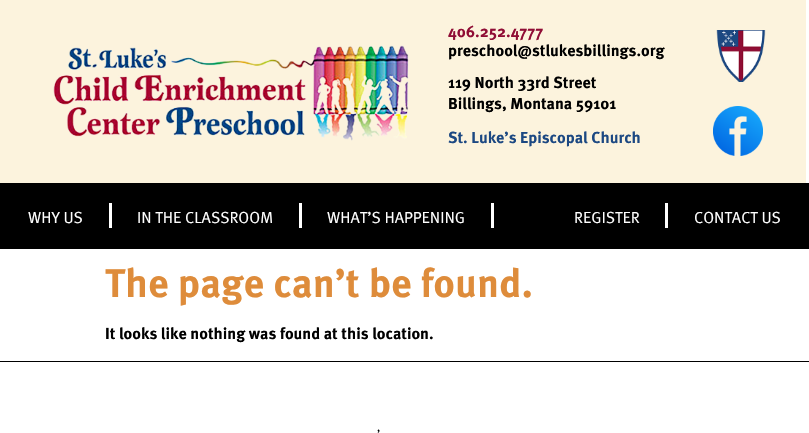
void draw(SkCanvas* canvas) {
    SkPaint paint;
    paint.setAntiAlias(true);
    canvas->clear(0xFFFFFFFF);
    paint.setColor(0xFFFCF3DD);
    canvas->drawRect(SkRect::MakeXYWH(0, 0, 806, 183), paint);
    canvas->drawImageRect(SkImages::DeferredFromEncodedData(SkData::MakeFromFileName("img1.png")), SkRect::MakeXYWH(53, 45, 356, 96), SkSamplingOptions());
    SkFont font1(fontMgr->matchFamilyStyle("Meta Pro", SkFontStyle::Bold()), 16);
    font1.setSubpixel(true);
    paint.setColor(0xFF900D35);
    canvas->drawString("406.252.4777", 448, 37, font1, paint);
    paint.setColor(0xFF000000);
    canvas->drawString("preschool@stlukesbillings.org", 448, 56, font1, paint);
    canvas->drawString("119 North 33rd Street", 448, 88, font1, paint);
    canvas->drawString("Billings, Montana 59101", 448, 109, font1, paint);
    paint.setColor(0xFF1C4882);
    canvas->drawString("St. Luke’s Episcopal Church", 448, 143, font1, paint);
    canvas->drawImageRect(SkImages::DeferredFromEncodedData(SkData::MakeFromFileName("img2.png")), SkRect::MakeXYWH(716, 30, 50, 52), SkSamplingOptions());
    canvas->drawImageRect(SkImages::DeferredFromEncodedData(SkData::MakeFromFileName("img3.png")), SkRect::MakeXYWH(713, 106, 50, 50), SkSamplingOptions());
    paint.setColor(0xFF000000);
    canvas->drawRect(SkRect::MakeXYWH(0, 183, 809, 66), paint);
    SkFont font2(fontMgr->matchFamilyStyle("Meta Pro", SkFontStyle::Normal()), 16);
    font2.setSubpixel(true);
    paint.setColor(0xFFFFFFFF);
    canvas->drawString("WHY US", 28, 223, font2, paint);
    canvas->drawRect(SkRect::MakeXYWH(109, 203, 3, 25), paint);
    canvas->drawString("IN THE CLASSROOM", 137, 223, font2, paint);
    canvas->drawRect(SkRect::MakeXYWH(299, 203, 3, 25), paint);
    canvas->drawString("WHAT’S HAPPENING", 327, 223, font2, paint);
    canvas->drawRect(SkRect::MakeXYWH(491, 203, 3, 25), paint);
    canvas->drawString("REGISTER", 574, 223, font2, paint);
    canvas->drawRect(SkRect::MakeXYWH(665, 203, 3, 25), paint);
    canvas->drawString("CONTACT US", 694, 223, font2, paint);
    SkFont font3(fontMgr->matchFamilyStyle("Meta Pro", SkFontStyle::Bold()), 40);
    font3.setSubpixel(true);
    paint.setColor(0xFFDE8C3B);
    canvas->drawString("The page can’t be found.", 105, 297, font3, paint);
    SkFont font4(fontMgr->matchFamilyStyle("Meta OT", SkFontStyle::Bold()), 16);
    font4.setSubpixel(true);
    paint.setColor(0xFF000000);
    canvas->drawString("It looks like nothing was found at this location.", 105, 339, font4, paint);
    canvas->drawRect(SkRect::MakeXYWH(0, 361, 809, 1), paint);
    SkFont font5(fontMgr->matchFamilyStyle("Meta Pro", SkFontStyle::Normal()), 12);
    font5.setSubpixel(true);
    canvas->drawString("’", 377, 438, font5, paint);
}
